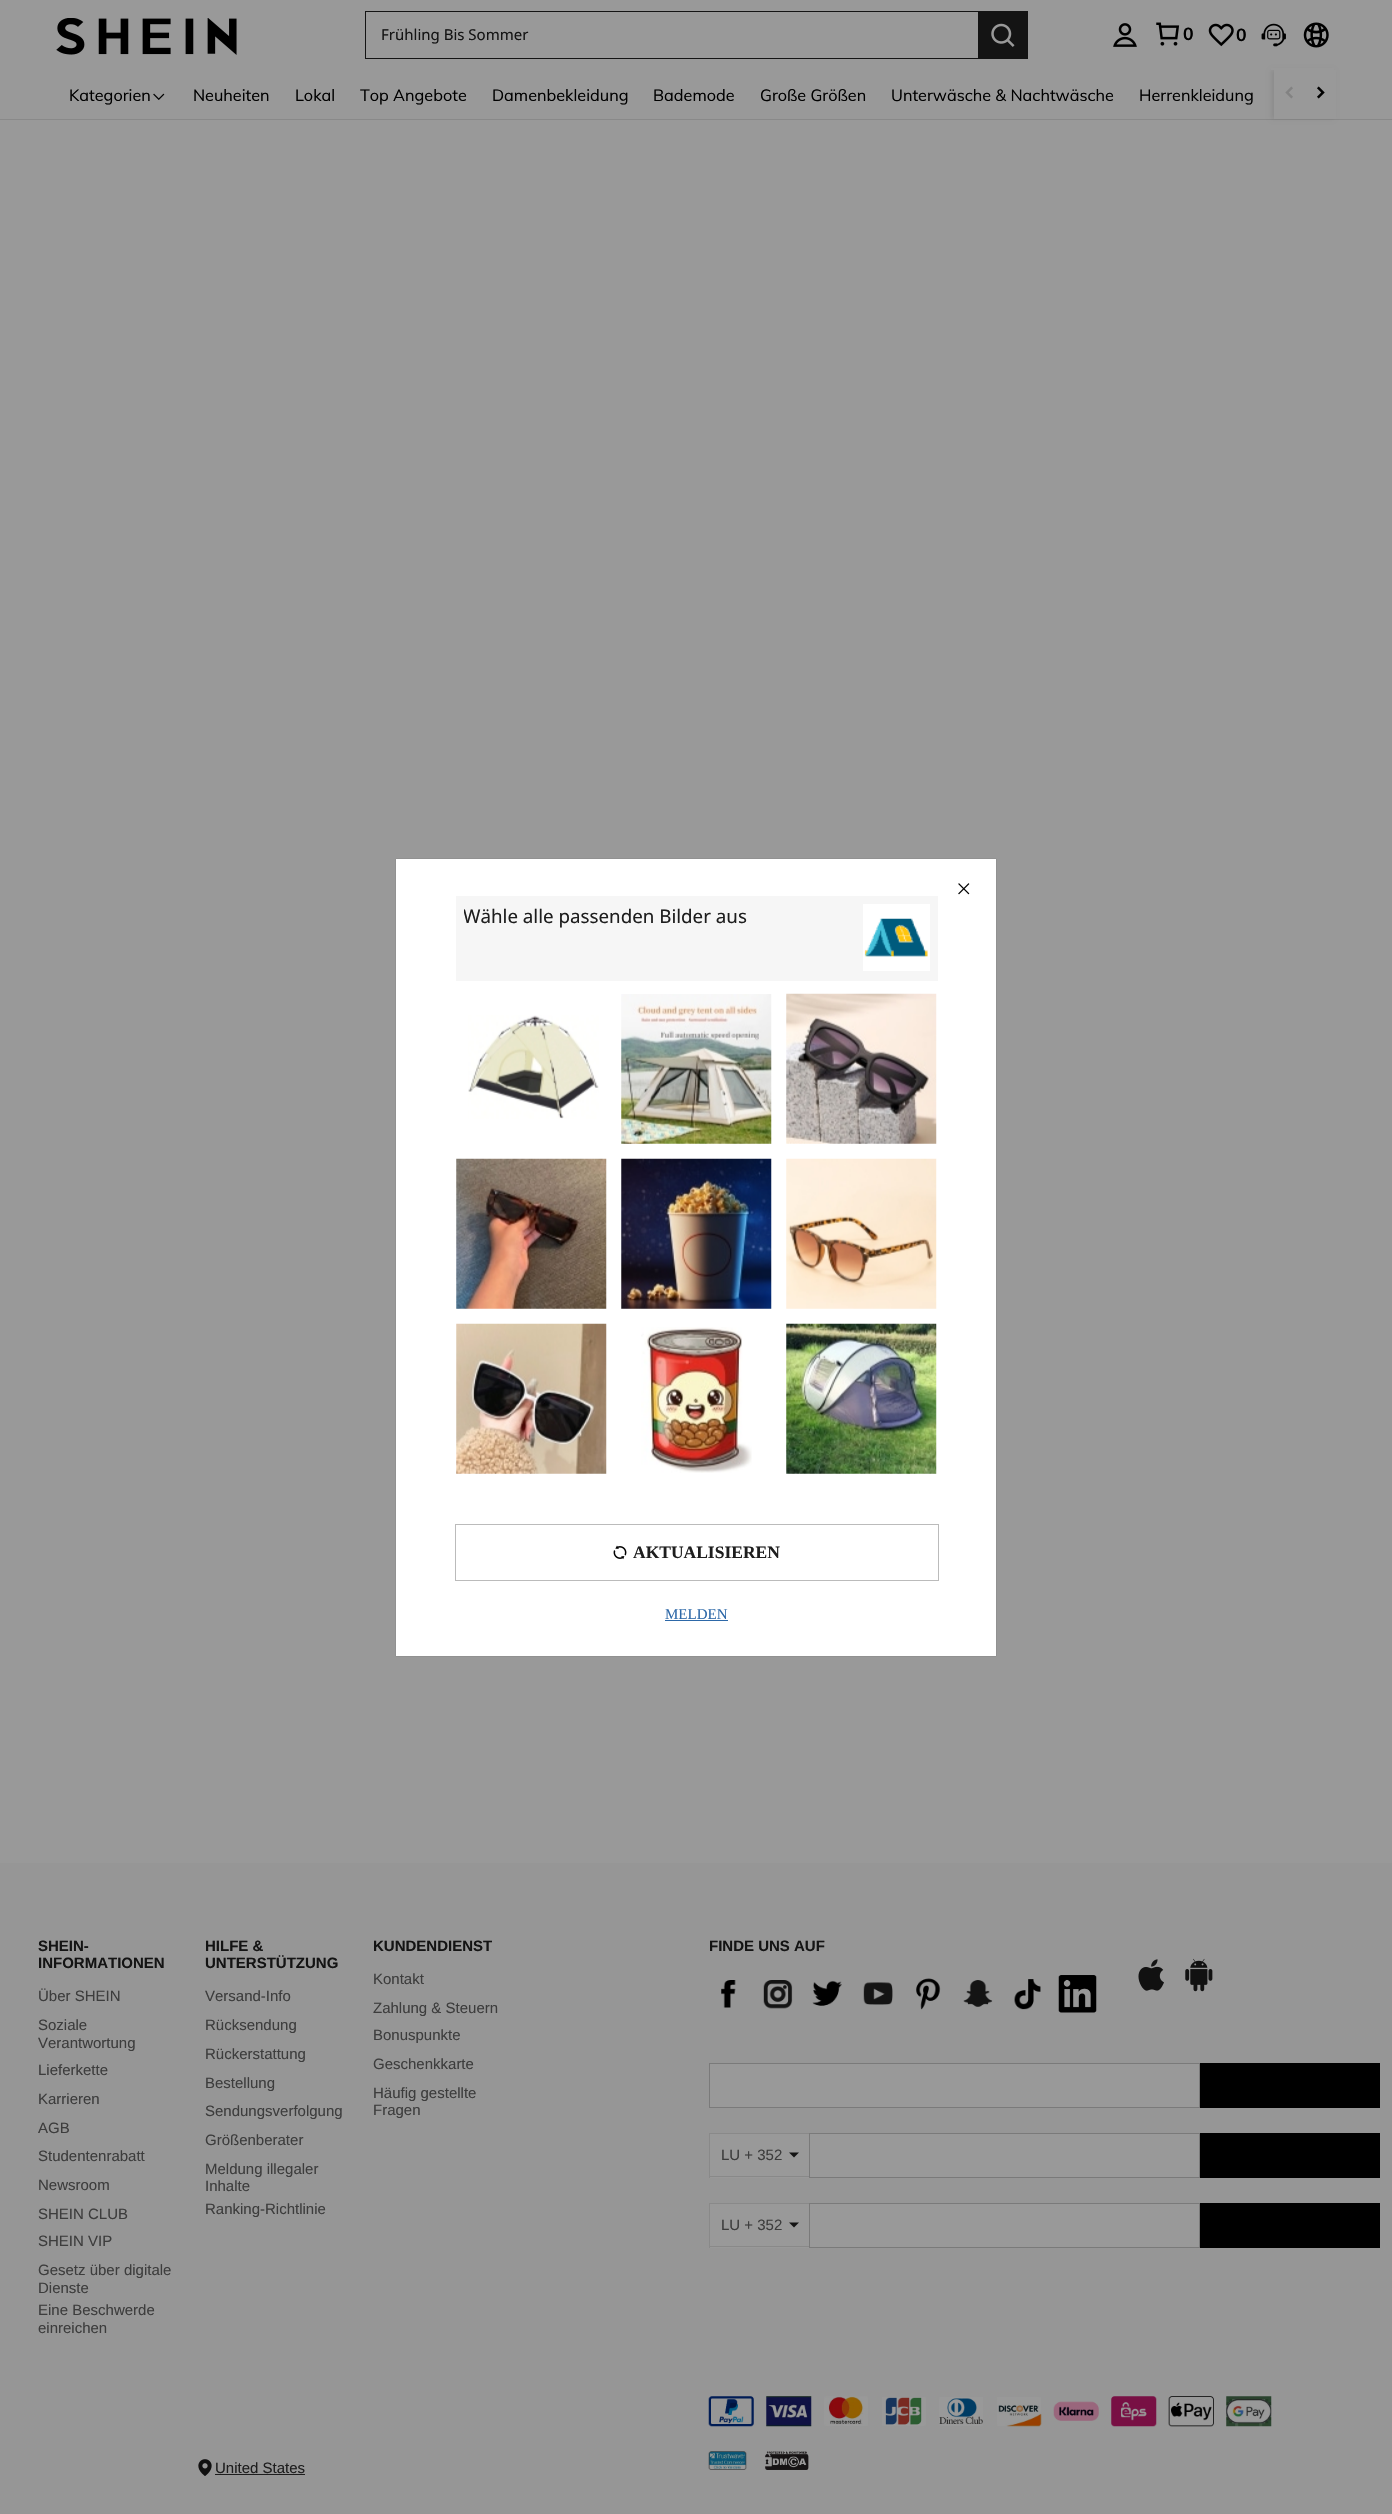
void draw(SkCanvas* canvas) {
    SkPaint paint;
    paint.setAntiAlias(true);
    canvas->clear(0xFF999999);
    paint.setColor(0xFF898989);
    canvas->drawRect(SkRect::MakeXYWH(0, 119, 1392, 1), paint);
    paint.setColor(0x14000000);
    paint.setMaskFilter(SkMaskFilter::MakeBlur(kNormal_SkBlurStyle, 2));
    canvas->drawRect(SkRect::MakeXYWH(1271, 70, 63, 49), paint);
    paint.setMaskFilter(nullptr);
    paint.setColor(0xFF999999);
    canvas->drawRect(SkRect::MakeXYWH(1271, 68, 63, 2), paint);
    canvas->drawImageRect(SkImages::DeferredFromEncodedData(SkData::MakeFromFileName("img1.png")), SkRect::MakeXYWH(56, 18, 181, 37), SkSamplingOptions());
    paint.setColor(0xFF141414);
    canvas->drawRect(SkRect::MakeXYWH(365, 11, 613, 1), paint);
    canvas->drawRect(SkRect::MakeXYWH(365, 58, 613, 1), paint);
    canvas->drawRect(SkRect::MakeXYWH(365, 11, 1, 48), paint);
    SkFont font1(fontMgr->matchFamilyStyle("Noto Sans", SkFontStyle::Normal()), 15);
    font1.setSubpixel(true);
    canvas->drawString("Frühling Bis Sommer", 381, 40, font1, paint);
    canvas->drawRect(SkRect::MakeXYWH(978, 11, 50, 48), paint);
    canvas->drawImageRect(SkImages::DeferredFromEncodedData(SkData::MakeFromFileName("img2.png")), SkRect::MakeXYWH(991, 23, 24, 24), SkSamplingOptions());
    canvas->drawImageRect(SkImages::DeferredFromEncodedData(SkData::MakeFromFileName("img3.png")), SkRect::MakeXYWH(1113, 23, 24, 24), SkSamplingOptions());
    canvas->drawImageRect(SkImages::DeferredFromEncodedData(SkData::MakeFromFileName("img4.png")), SkRect::MakeXYWH(1156, 22, 24, 24), SkSamplingOptions());
    SkFont font2(fontMgr->matchFamilyStyle("Muli", SkFontStyle::Bold()), 17.5f);
    font2.setSubpixel(true);
    paint.setColor(0xFF000000);
    canvas->drawString("0", 1183, 40, font2, paint);
    canvas->drawImageRect(SkImages::DeferredFromEncodedData(SkData::MakeFromFileName("img5.png")), SkRect::MakeXYWH(1208, 23, 26, 24), SkSamplingOptions());
    canvas->drawString("0", 1236, 41, font2, paint);
    canvas->drawImageRect(SkImages::DeferredFromEncodedData(SkData::MakeFromFileName("img6.png")), SkRect::MakeXYWH(1261, 23, 25, 24), SkSamplingOptions());
    canvas->drawImageRect(SkImages::DeferredFromEncodedData(SkData::MakeFromFileName("img7.png")), SkRect::MakeXYWH(1303, 22, 26, 26), SkSamplingOptions());
    SkFont font3(fontMgr->matchFamilyStyle("Muli", SkFontStyle::Normal()), 16.25f);
    font3.setSubpixel(true);
    canvas->drawString("Kategorien", 69, 101, font3, paint);
    canvas->drawImageRect(SkImages::DeferredFromEncodedData(SkData::MakeFromFileName("img8.png")), SkRect::MakeXYWH(153, 93, 12, 7), SkSamplingOptions());
    canvas->drawString("Neuheiten", 193, 101, font3, paint);
    canvas->drawString("Lokal", 295, 101, font3, paint);
    canvas->drawString("Top Angebote", 360, 101, font3, paint);
    canvas->drawString("Damenbekleidung", 492, 101, font3, paint);
    canvas->drawString("Bademode", 653, 101, font3, paint);
    canvas->drawString("Große Größen", 760, 101, font3, paint);
    canvas->drawString("Unterwäsche & Nachtwäsche", 891, 101, font3, paint);
    canvas->drawString("Herrenkleidung", 1139, 101, font3, paint);
    paint.setColor(0xFF999999);
    canvas->drawRect(SkRect::MakeXYWH(1274, 70, 62, 49), paint);
    canvas->drawImageRect(SkImages::DeferredFromEncodedData(SkData::MakeFromFileName("img9.png")), SkRect::MakeXYWH(1285, 86, 8, 13), SkSamplingOptions());
    canvas->drawImageRect(SkImages::DeferredFromEncodedData(SkData::MakeFromFileName("img10.png")), SkRect::MakeXYWH(1317, 86, 8, 13), SkSamplingOptions());
    paint.setColor(0xFF969696);
    canvas->drawRect(SkRect::MakeXYWH(0, 1863, 1392, 651), paint);
    SkFont font4(fontMgr->matchFamilyStyle("Liberation Sans", SkFontStyle::Bold()), 15);
    font4.setSubpixel(true);
    paint.setColor(0xFF141414);
    canvas->drawString("SHEIN-", 38, 1951, font4, paint);
    canvas->drawString("INFORMATIONEN", 38, 1968, font4, paint);
    SkFont font5(fontMgr->matchFamilyStyle("Liberation Sans", SkFontStyle::Normal()), 15);
    font5.setSubpixel(true);
    paint.setColor(0xFF3D3D3D);
    canvas->drawString("Über SHEIN", 38, 2001, font5, paint);
    canvas->drawString("Soziale", 38, 2030, font5, paint);
    canvas->drawString("Verantwortung", 38, 2048, font5, paint);
    canvas->drawString("Lieferkette", 38, 2075, font5, paint);
    canvas->drawString("Karrieren", 38, 2104, font5, paint);
    canvas->drawString("AGB", 38, 2133, font5, paint);
    canvas->drawString("Studentenrabatt", 38, 2161, font5, paint);
    canvas->drawString("Newsroom", 38, 2190, font5, paint);
    canvas->drawString("SHEIN CLUB", 38, 2219, font5, paint);
    canvas->drawString("SHEIN VIP", 38, 2246, font5, paint);
    canvas->drawString("Gesetz über digitale", 38, 2275, font5, paint);
    canvas->drawString("Dienste", 38, 2293, font5, paint);
    canvas->drawString("Eine Beschwerde", 38, 2315, font5, paint);
    canvas->drawString("einreichen", 38, 2333, font5, paint);
    paint.setColor(0xFF141414);
    canvas->drawString("HILFE &", 205, 1951, font4, paint);
    canvas->drawString("UNTERSTÜTZUNG", 205, 1968, font4, paint);
    paint.setColor(0xFF3D3D3D);
    canvas->drawString("Versand-Info", 205, 2001, font5, paint);
    canvas->drawString("Rücksendung", 205, 2030, font5, paint);
    canvas->drawString("Rückerstattung", 205, 2059, font5, paint);
    canvas->drawString("Bestellung", 205, 2088, font5, paint);
    canvas->drawString("Sendungsverfolgung", 205, 2116, font5, paint);
    canvas->drawString("Größenberater", 205, 2145, font5, paint);
    canvas->drawString("Meldung illegaler", 205, 2174, font5, paint);
    canvas->drawString("Inhalte", 205, 2191, font5, paint);
    canvas->drawString("Ranking-Richtlinie", 205, 2214, font5, paint);
    paint.setColor(0xFF141414);
    canvas->drawString("KUNDENDIENST", 373, 1951, font4, paint);
    paint.setColor(0xFF3D3D3D);
    canvas->drawString("Kontakt", 373, 1984, font5, paint);
    canvas->drawString("Zahlung & Steuern", 373, 2013, font5, paint);
    canvas->drawString("Bonuspunkte", 373, 2040, font5, paint);
    canvas->drawString("Geschenkkarte", 373, 2069, font5, paint);
    canvas->drawString("Häufig gestellte", 373, 2098, font5, paint);
    canvas->drawString("Fragen", 373, 2115, font5, paint);
    paint.setColor(0xFF141414);
    canvas->drawString("FINDE UNS AUF", 709, 1951, font4, paint);
    canvas->drawImageRect(SkImages::DeferredFromEncodedData(SkData::MakeFromFileName("img11.png")), SkRect::MakeXYWH(721, 1980, 15, 28), SkSamplingOptions());
    canvas->drawImageRect(SkImages::DeferredFromEncodedData(SkData::MakeFromFileName("img12.png")), SkRect::MakeXYWH(763, 1980, 30, 29), SkSamplingOptions());
    canvas->drawImageRect(SkImages::DeferredFromEncodedData(SkData::MakeFromFileName("img13.png")), SkRect::MakeXYWH(812, 1980, 30, 26), SkSamplingOptions());
    canvas->drawImageRect(SkImages::DeferredFromEncodedData(SkData::MakeFromFileName("img14.png")), SkRect::MakeXYWH(863, 1982, 30, 23), SkSamplingOptions());
    canvas->drawImageRect(SkImages::DeferredFromEncodedData(SkData::MakeFromFileName("img15.png")), SkRect::MakeXYWH(916, 1978, 25, 32), SkSamplingOptions());
    canvas->drawImageRect(SkImages::DeferredFromEncodedData(SkData::MakeFromFileName("img16.png")), SkRect::MakeXYWH(963, 1980, 30, 27), SkSamplingOptions());
    canvas->drawImageRect(SkImages::DeferredFromEncodedData(SkData::MakeFromFileName("img17.png")), SkRect::MakeXYWH(1014, 1979, 27, 31), SkSamplingOptions());
    canvas->drawImageRect(SkImages::DeferredFromEncodedData(SkData::MakeFromFileName("img18.png")), SkRect::MakeXYWH(1058, 1975, 39, 38), SkSamplingOptions());
    canvas->drawImageRect(SkImages::DeferredFromEncodedData(SkData::MakeFromFileName("img19.png")), SkRect::MakeXYWH(1138, 1959, 26, 32), SkSamplingOptions());
    canvas->drawImageRect(SkImages::DeferredFromEncodedData(SkData::MakeFromFileName("img20.png")), SkRect::MakeXYWH(1185, 1958, 28, 34), SkSamplingOptions());
    paint.setColor(0xFF999999);
    canvas->drawRect(SkRect::MakeXYWH(709.5f, 2063.5f, 490, 44), paint);
    paint.setStyle(SkPaint::kStroke_Style);
    paint.setStrokeWidth(1);
    paint.setColor(0xFF7A7A7A);
    canvas->drawRect(SkRect::MakeXYWH(709.5f, 2063.5f, 490, 44), paint);
    paint.setStyle(SkPaint::kFill_Style);
    paint.setColor(0xFF000000);
    canvas->drawRect(SkRect::MakeXYWH(1200, 2063, 180, 45), paint);
    paint.setColor(0xFF999999);
    canvas->drawRect(SkRect::MakeXYWH(710, 2134, 99, 44), paint);
    paint.setColor(0xFF898989);
    canvas->drawRect(SkRect::MakeXYWH(709, 2133, 100, 1), paint);
    canvas->drawRect(SkRect::MakeXYWH(709, 2176, 100, 1), paint);
    canvas->drawRect(SkRect::MakeXYWH(709, 2133, 1, 45), paint);
    paint.setColor(0xFF3D3D3D);
    canvas->drawString("LU + 352", 721, 2160, font5, paint);
    paint.setColor(0xFF141414);
    canvas->drawPath(SkPathBuilder().moveTo(789, 2152.5f).lineTo(799, 2152.5f).lineTo(794, 2157.5f).close().detach(), paint);
    paint.setColor(0xFF999999);
    canvas->drawRect(SkRect::MakeXYWH(809.5f, 2133.5f, 390, 44), paint);
    paint.setStyle(SkPaint::kStroke_Style);
    paint.setColor(0xFF7A7A7A);
    canvas->drawRect(SkRect::MakeXYWH(809.5f, 2133.5f, 390, 44), paint);
    paint.setStyle(SkPaint::kFill_Style);
    paint.setColor(0xFF000000);
    canvas->drawRect(SkRect::MakeXYWH(1200, 2133, 180, 45), paint);
    paint.setColor(0xFF999999);
    canvas->drawRect(SkRect::MakeXYWH(710, 2204, 99, 44), paint);
    paint.setColor(0xFF898989);
    canvas->drawRect(SkRect::MakeXYWH(709, 2203, 100, 1), paint);
    canvas->drawRect(SkRect::MakeXYWH(709, 2246, 100, 1), paint);
    canvas->drawRect(SkRect::MakeXYWH(709, 2203, 1, 45), paint);
    paint.setColor(0xFF3D3D3D);
    canvas->drawString("LU + 352", 721, 2230, font5, paint);
    paint.setColor(0xFF141414);
    canvas->drawPath(SkPathBuilder().moveTo(789, 2222.5f).lineTo(799, 2222.5f).lineTo(794, 2227.5f).close().detach(), paint);
    paint.setColor(0xFF999999);
    canvas->drawRect(SkRect::MakeXYWH(809.5f, 2203.5f, 390, 44), paint);
    paint.setStyle(SkPaint::kStroke_Style);
    paint.setColor(0xFF7A7A7A);
    canvas->drawRect(SkRect::MakeXYWH(809.5f, 2203.5f, 390, 44), paint);
    paint.setStyle(SkPaint::kFill_Style);
    paint.setColor(0xFF000000);
    canvas->drawRect(SkRect::MakeXYWH(1200, 2203, 180, 45), paint);
    canvas->drawImageRect(SkImages::DeferredFromEncodedData(SkData::MakeFromFileName("img21.png")), SkRect::MakeXYWH(708, 2396, 46, 31), SkSamplingOptions());
    canvas->drawImageRect(SkImages::DeferredFromEncodedData(SkData::MakeFromFileName("img22.png")), SkRect::MakeXYWH(766, 2396, 46, 31), SkSamplingOptions());
    canvas->drawImageRect(SkImages::DeferredFromEncodedData(SkData::MakeFromFileName("img23.png")), SkRect::MakeXYWH(824, 2396, 44, 30), SkSamplingOptions());
    canvas->drawImageRect(SkImages::DeferredFromEncodedData(SkData::MakeFromFileName("img24.png")), SkRect::MakeXYWH(882, 2397, 44, 29), SkSamplingOptions());
    canvas->drawImageRect(SkImages::DeferredFromEncodedData(SkData::MakeFromFileName("img25.png")), SkRect::MakeXYWH(939, 2397, 44, 29), SkSamplingOptions());
    canvas->drawImageRect(SkImages::DeferredFromEncodedData(SkData::MakeFromFileName("img26.png")), SkRect::MakeXYWH(997, 2397, 45, 30), SkSamplingOptions());
    canvas->drawImageRect(SkImages::DeferredFromEncodedData(SkData::MakeFromFileName("img27.png")), SkRect::MakeXYWH(1053, 2401, 46, 20), SkSamplingOptions());
    canvas->drawImageRect(SkImages::DeferredFromEncodedData(SkData::MakeFromFileName("img28.png")), SkRect::MakeXYWH(1111, 2396, 46, 31), SkSamplingOptions());
    canvas->drawImageRect(SkImages::DeferredFromEncodedData(SkData::MakeFromFileName("img29.png")), SkRect::MakeXYWH(1168, 2396, 46, 31), SkSamplingOptions());
    canvas->drawImageRect(SkImages::DeferredFromEncodedData(SkData::MakeFromFileName("img30.png")), SkRect::MakeXYWH(1226, 2396, 46, 31), SkSamplingOptions());
    canvas->drawImageRect(SkImages::DeferredFromEncodedData(SkData::MakeFromFileName("img31.png")), SkRect::MakeXYWH(198, 2459, 14, 17), SkSamplingOptions());
    paint.setColor(0xFF1E1E1E);
    canvas->drawString("United States", 215, 2473, font5, paint);
    canvas->drawRect(SkRect::MakeXYWH(215, 2474, 90, 1), paint);
    canvas->drawImageRect(SkImages::DeferredFromEncodedData(SkData::MakeFromFileName("img32.png")), SkRect::MakeXYWH(708, 2451, 39, 19), SkSamplingOptions());
    canvas->drawImageRect(SkImages::DeferredFromEncodedData(SkData::MakeFromFileName("img33.png")), SkRect::MakeXYWH(765, 2451, 44, 19), SkSamplingOptions());
    paint.setColor(0x4D000000);
    paint.setMaskFilter(SkMaskFilter::MakeBlur(kNormal_SkBlurStyle, 0.5f));
    canvas->drawRect(SkRect::MakeXYWH(396, 859, 600, 797), paint);
    paint.setMaskFilter(nullptr);
    paint.setColor(0xFFFFFFFF);
    canvas->drawRect(SkRect::MakeXYWH(396, 859, 600, 797), paint);
    canvas->drawImageRect(SkImages::DeferredFromEncodedData(SkData::MakeFromFileName("img34.png")), SkRect::MakeXYWH(958, 883, 12, 12), SkSamplingOptions());
    paint.setColor(0xFFF6F6F6);
    canvas->drawRect(SkRect::MakeXYWH(456, 896, 482, 85), paint);
    canvas->save();
    canvas->clipRect(SkRect::MakeXYWH(464, 904, 375, 70));
    SkFont font6(fontMgr->matchFamilyStyle("Noto Sans", SkFontStyle::Normal()), 18.75f);
    font6.setSubpixel(true);
    paint.setColor(0xFF1E1E1E);
    canvas->drawString("Wähle alle passenden Bilder aus", 463, 923, font6, paint);
    canvas->restore();
    paint.setColor(0xFFFFFFFF);
    canvas->drawRect(SkRect::MakeXYWH(863, 904, 67, 67), paint);
    canvas->drawImageRect(SkImages::DeferredFromEncodedData(SkData::MakeFromFileName("img35.png")), SkRect::MakeXYWH(864, 918, 64, 39), SkSamplingOptions());
    canvas->drawImageRect(SkImages::DeferredFromEncodedData(SkData::MakeFromFileName("img36.png")), SkRect::MakeXYWH(468, 1015, 131, 104), SkSamplingOptions());
    canvas->drawImageRect(SkImages::DeferredFromEncodedData(SkData::MakeFromFileName("img37.png")), SkRect::MakeXYWH(621, 994, 151, 150), SkSamplingOptions());
    canvas->drawImageRect(SkImages::DeferredFromEncodedData(SkData::MakeFromFileName("img38.png")), SkRect::MakeXYWH(786, 993, 151, 151), SkSamplingOptions());
    canvas->drawImageRect(SkImages::DeferredFromEncodedData(SkData::MakeFromFileName("img39.png")), SkRect::MakeXYWH(456, 1158, 151, 151), SkSamplingOptions());
    canvas->drawImageRect(SkImages::DeferredFromEncodedData(SkData::MakeFromFileName("img40.png")), SkRect::MakeXYWH(621, 1158, 151, 151), SkSamplingOptions());
    canvas->drawImageRect(SkImages::DeferredFromEncodedData(SkData::MakeFromFileName("img41.png")), SkRect::MakeXYWH(786, 1158, 151, 151), SkSamplingOptions());
    canvas->drawImageRect(SkImages::DeferredFromEncodedData(SkData::MakeFromFileName("img42.png")), SkRect::MakeXYWH(456, 1323, 151, 151), SkSamplingOptions());
    canvas->drawImageRect(SkImages::DeferredFromEncodedData(SkData::MakeFromFileName("img43.png")), SkRect::MakeXYWH(641, 1327, 111, 146), SkSamplingOptions());
    canvas->drawImageRect(SkImages::DeferredFromEncodedData(SkData::MakeFromFileName("img44.png")), SkRect::MakeXYWH(786, 1323, 151, 151), SkSamplingOptions());
    paint.setStyle(SkPaint::kStroke_Style);
    paint.setColor(0xFFBBBBBB);
    canvas->drawRect(SkRect::MakeXYWH(455.5f, 1524.5f, 483, 56), paint);
    canvas->drawImageRect(SkImages::DeferredFromEncodedData(SkData::MakeFromFileName("img45.png")), SkRect::MakeXYWH(613, 1545, 14, 15), SkSamplingOptions());
    SkFont font7(fontMgr->matchFamilyStyle("Liberation Serif", SkFontStyle::Bold()), 17.5f);
    font7.setSubpixel(true);
    paint.setStyle(SkPaint::kFill_Style);
    paint.setColor(0xFF1E1E1E);
    canvas->drawString("AKTUALISIEREN", 633, 1558, font7, paint);
    SkFont font8(fontMgr->matchFamilyStyle("Liberation Serif", SkFontStyle::Normal()), 15);
    font8.setSubpixel(true);
    paint.setColor(0xFF2D68A8);
    canvas->drawString("MELDEN", 665, 1619, font8, paint);
    canvas->drawRect(SkRect::MakeXYWH(665, 1620, 63, 1), paint);
}
